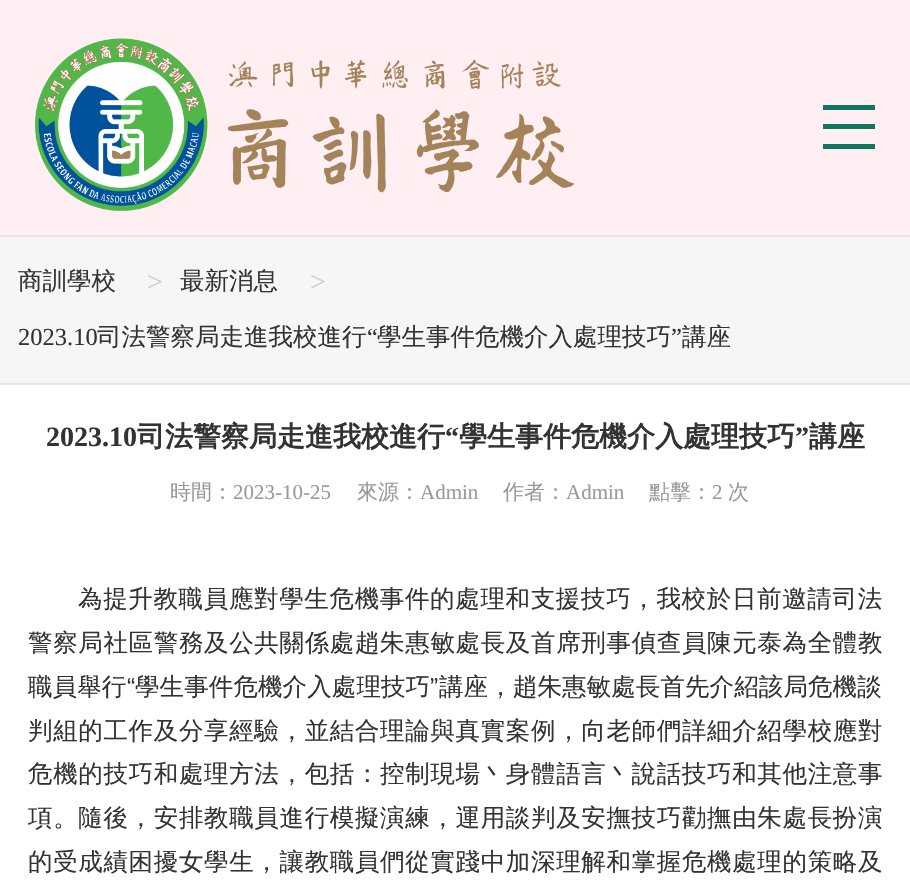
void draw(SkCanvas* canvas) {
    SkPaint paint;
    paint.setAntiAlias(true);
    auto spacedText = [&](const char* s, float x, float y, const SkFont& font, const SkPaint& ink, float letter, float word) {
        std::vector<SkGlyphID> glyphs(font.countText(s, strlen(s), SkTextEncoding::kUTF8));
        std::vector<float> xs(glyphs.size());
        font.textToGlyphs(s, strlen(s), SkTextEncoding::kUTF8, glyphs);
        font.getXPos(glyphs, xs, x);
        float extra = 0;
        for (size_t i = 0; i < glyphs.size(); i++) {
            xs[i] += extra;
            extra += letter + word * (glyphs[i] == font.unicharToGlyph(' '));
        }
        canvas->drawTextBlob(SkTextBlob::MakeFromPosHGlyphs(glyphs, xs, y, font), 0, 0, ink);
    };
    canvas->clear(0xFFFFEEF2);
    canvas->drawImageRect(SkImages::DeferredFromEncodedData(SkData::MakeFromFileName("img1.png")), SkRect::MakeXYWH(35, 38, 173, 173), SkSamplingOptions());
    canvas->drawImageRect(SkImages::DeferredFromEncodedData(SkData::MakeFromFileName("img2.png")), SkRect::MakeXYWH(228, 60, 346, 133), SkSamplingOptions());
    paint.setColor(0xFF0F7560);
    canvas->drawRect(SkRect::MakeXYWH(823, 105, 52, 5), paint);
    canvas->drawRect(SkRect::MakeXYWH(823, 124, 52, 5), paint);
    canvas->drawRect(SkRect::MakeXYWH(823, 144, 52, 5), paint);
    paint.setColor(0xFFF6F6F6);
    canvas->drawRect(SkRect::MakeXYWH(0, 237, 910, 146), paint);
    paint.setColor(0xFFE5E5E5);
    canvas->drawRect(SkRect::MakeXYWH(0, 235, 910, 2), paint);
    canvas->drawRect(SkRect::MakeXYWH(0, 383, 910, 2), paint);
    SkFont font1(fontMgr->matchFamilyStyle("WenQuanYi Zen Hei", SkFontStyle(500, SkFontStyle::kNormal_Width, SkFontStyle::kUpright_Slant)), 24.5f);
    font1.setSubpixel(true);
    paint.setColor(0xFF333333);
    canvas->drawString("商訓學校", 18, 289, font1, paint);
    SkFont font2(fontMgr->matchFamilyStyle("Liberation Serif", SkFontStyle::Normal()), 28);
    font2.setSubpixel(true);
    paint.setColor(0xFFCCCCCC);
    canvas->drawString(">", 147, 291, font2, paint);
    paint.setColor(0xFF333333);
    canvas->drawString("最新消息", 180, 289, font1, paint);
    paint.setColor(0xFFCCCCCC);
    canvas->drawString(">", 310, 291, font2, paint);
    SkFont font3(fontMgr->matchFamilyStyle("Liberation Serif", SkFontStyle::Normal()), 24.5f);
    font3.setSubpixel(true);
    paint.setColor(0xFF333333);
    canvas->drawString("2023.10", 18, 345, font3, paint);
    canvas->drawString("司法警察局走進我校進行", 97, 345, font1, paint);
    canvas->drawString("“", 367, 345, font3, paint);
    canvas->drawString("學生事件危機介入處理技巧", 377, 345, font1, paint);
    canvas->drawString("”", 671, 345, font3, paint);
    canvas->drawString("講座", 682, 345, font1, paint);
    paint.setColor(0xFFFFFFFF);
    canvas->drawRect(SkRect::MakeXYWH(0, 385, 910, 499), paint);
    SkFont font4(fontMgr->matchFamilyStyle("Liberation Serif", SkFontStyle::Bold()), 28);
    font4.setSubpixel(true);
    paint.setColor(0xFF333333);
    canvas->drawString("2023.10", 46, 446, font4, paint);
    SkFont font5(fontMgr->matchFamilyStyle("WenQuanYi Zen Hei", SkFontStyle::Bold()), 28);
    font5.setSubpixel(true);
    canvas->drawString("司法警察局走進我校進行", 137, 446, font5, paint);
    canvas->drawString("“", 445, 446, font4, paint);
    canvas->drawString("學生事件危機介入處理技巧", 459, 446, font5, paint);
    canvas->drawString("”", 795, 446, font4, paint);
    canvas->drawString("講座", 809, 446, font5, paint);
    SkFont font6(fontMgr->matchFamilyStyle("WenQuanYi Zen Hei", SkFontStyle(500, SkFontStyle::kNormal_Width, SkFontStyle::kUpright_Slant)), 21);
    font6.setSubpixel(true);
    paint.setColor(0xFF999999);
    canvas->drawString("時間：", 170, 499, font6, paint);
    SkFont font7(fontMgr->matchFamilyStyle("Liberation Serif", SkFontStyle::Normal()), 21);
    font7.setSubpixel(true);
    canvas->drawString("2023-10-25", 233, 499, font7, paint);
    canvas->drawString("來源：", 357, 499, font6, paint);
    canvas->drawString("Admin", 420, 499, font7, paint);
    canvas->drawString("作者：", 503, 499, font6, paint);
    canvas->drawString("Admin", 566, 499, font7, paint);
    canvas->drawString("點擊：", 649, 499, font6, paint);
    canvas->drawString("2", 712, 499, font7, paint);
    canvas->drawString("次", 728, 499, font6, paint);
    paint.setColor(0xFF333333);
    spacedText("為提升教職員應對學生危機事件的處理和支援技巧，我校於日前邀請司法", 78, 607, font1, paint, 0.65f, 0);
    spacedText("警察局社區警務及公共關係處趙朱惠敏處長及首席刑事偵查員陳元泰為全體教", 28, 651, font1, paint, 0.65f, 0);
    spacedText("職員舉行", 28, 695, font1, paint, 0.1f, 0);
    SkFont font8(fontMgr->matchFamilyStyle("Liberation Sans", SkFontStyle::Normal()), 24.5f);
    font8.setSubpixel(true);
    spacedText("“", 127, 695, font8, paint, 0.1f, 0);
    spacedText("學生事件危機介入處理技巧", 135, 695, font1, paint, 0.1f, 0);
    spacedText("”", 430, 695, font8, paint, 0.1f, 0);
    spacedText("講座，趙朱惠敏處長首先介紹該局危機談", 439, 695, font1, paint, 0.1f, 0);
    spacedText("判組的工作及分享經驗，並結合理論與真實案例，向老師們詳細介紹學校應對", 28, 739, font1, paint, 0.65f, 0);
    spacedText("危機的技巧和處理方法，包括：控制現場丶身體語言丶說話技巧和其他注意事", 28, 782, font1, paint, 0.65f, 0);
    spacedText("項。隨後，安排教職員進行模擬演練，運用談判及安撫技巧勸撫由朱處長扮演", 28, 826, font1, paint, 0.65f, 0);
    spacedText("的受成績困擾女學生，讓教職員們從實踐中加深理解和掌握危機處理的策略及", 28, 870, font1, paint, 0.65f, 0);
}
